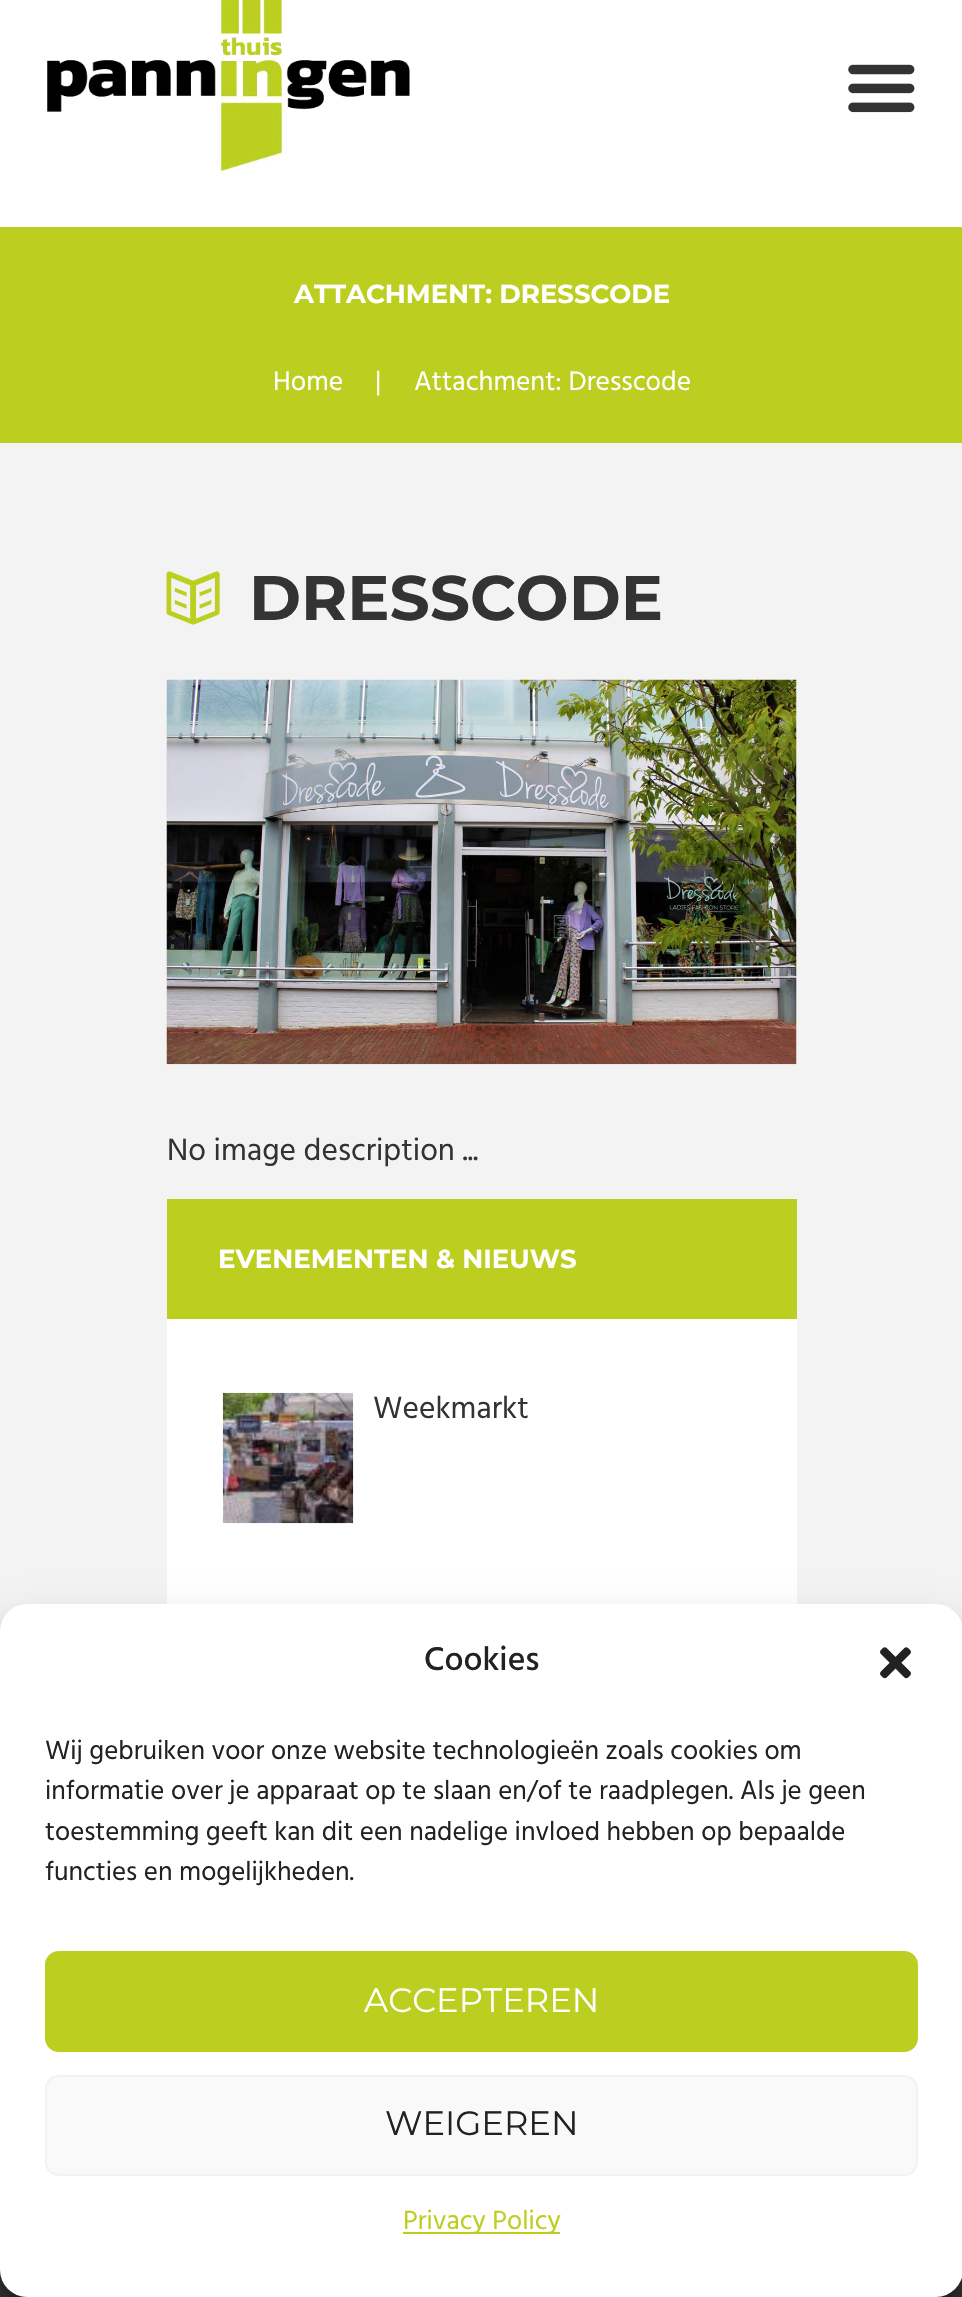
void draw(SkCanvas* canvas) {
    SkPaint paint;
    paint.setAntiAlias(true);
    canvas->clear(0xFFF3F3F3);
    paint.setColor(0xFFFFFFFF);
    canvas->drawRect(SkRect::MakeXYWH(0, 0, 962, 227), paint);
    canvas->drawImageRect(SkImages::DeferredFromEncodedData(SkData::MakeFromFileName("img1.png")), SkRect::MakeXYWH(47, 0, 363, 173), SkSamplingOptions());
    canvas->drawImageRect(SkImages::DeferredFromEncodedData(SkData::MakeFromFileName("img2.png")), SkRect::MakeXYWH(848, 64, 67, 49), SkSamplingOptions());
    paint.setColor(0xFFBCCF21);
    canvas->drawRect(SkRect::MakeXYWH(0, 227, 962, 216), paint);
    SkFont font1(fontMgr->matchFamilyStyle("Montserrat", SkFontStyle::Bold()), 26);
    font1.setSubpixel(true);
    paint.setColor(0xFFFFFFFF);
    canvas->drawString("ATTACHMENT: DRESSCODE", 294, 303, font1, paint);
    SkFont font2(fontMgr->matchFamilyStyle("Hind", SkFontStyle::Normal()), 27.5f);
    font2.setSubpixel(true);
    canvas->drawString("Home", 273, 390, font2, paint);
    canvas->drawString("|", 375, 390, font2, paint);
    canvas->drawString("Attachment: Dresscode", 414, 390, font2, paint);
    canvas->drawImageRect(SkImages::DeferredFromEncodedData(SkData::MakeFromFileName("img3.png")), SkRect::MakeXYWH(166, 571, 54, 54), SkSamplingOptions());
    SkFont font3(fontMgr->matchFamilyStyle("Montserrat", SkFontStyle::Bold()), 63);
    font3.setSubpixel(true);
    paint.setColor(0xFF333333);
    canvas->drawString("DRESSCODE", 249, 620, font3, paint);
    canvas->drawImageRect(SkImages::DeferredFromEncodedData(SkData::MakeFromFileName("img4.png")), SkRect::MakeXYWH(166, 679, 631, 386), SkSamplingOptions());
    SkFont font4(fontMgr->matchFamilyStyle("Hind", SkFontStyle::Normal()), 31.5f);
    font4.setSubpixel(true);
    canvas->drawString("No image description ...", 167, 1160, font4, paint);
    paint.setColor(0xFFFFFFFF);
    canvas->drawRect(SkRect::MakeXYWH(167, 1319, 630, 285), paint);
    paint.setColor(0xFFBCCF21);
    canvas->drawRect(SkRect::MakeXYWH(167, 1199, 630, 120), paint);
    paint.setColor(0xFFFFFFFF);
    canvas->drawString("EVENEMENTEN & NIEUWS", 218, 1268, font1, paint);
    canvas->drawImageRect(SkImages::DeferredFromEncodedData(SkData::MakeFromFileName("img5.png")), SkRect::MakeXYWH(222, 1392, 132, 132), SkSamplingOptions());
    paint.setColor(0xFF333333);
    canvas->drawString("Weekmarkt", 373, 1418, font4, paint);
    canvas->drawRect(SkRect::MakeXYWH(0, 2270, 962, 27), paint);
    paint.setColor(0x3B000000);
    paint.setMaskFilter(SkMaskFilter::MakeBlur(kNormal_SkBlurStyle, 7));
    canvas->drawRoundRect(SkRect::MakeXYWH(0, 1618, 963, 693), 27, 27, paint);
    paint.setMaskFilter(nullptr);
    paint.setColor(0x30000000);
    paint.setMaskFilter(SkMaskFilter::MakeBlur(kNormal_SkBlurStyle, 22.5f));
    canvas->drawRoundRect(SkRect::MakeXYWH(0, 1627, 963, 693), 27, 27, paint);
    paint.setMaskFilter(nullptr);
    paint.setColor(0xFFFFFFFF);
    canvas->drawRoundRect(SkRect::MakeXYWH(0, 1604, 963, 693), 27, 27, paint);
    SkFont font5(fontMgr->matchFamilyStyle("Hind", SkFontStyle(500, SkFontStyle::kNormal_Width, SkFontStyle::kUpright_Slant)), 33.75f);
    font5.setSubpixel(true);
    paint.setColor(0xFF222222);
    canvas->drawString("Cookies", 424, 1670, font5, paint);
    canvas->drawImageRect(SkImages::DeferredFromEncodedData(SkData::MakeFromFileName("img6.png")), SkRect::MakeXYWH(880, 1647, 31, 32), SkSamplingOptions());
    SkFont font6(fontMgr->matchFamilyStyle("Hind", SkFontStyle::Normal()), 27);
    font6.setSubpixel(true);
    canvas->drawString("Wij gebruiken voor onze website technologieën zoals cookies om", 45, 1759, font6, paint);
    canvas->drawString("informatie over je apparaat op te slaan en/of te raadplegen. Als je geen", 45, 1799, font6, paint);
    canvas->drawString("toestemming geeft kan dit een nadelige invloed hebben op bepaalde", 45, 1840, font6, paint);
    canvas->drawString("functies en mogelijkheden.", 45, 1880, font6, paint);
    paint.setColor(0xFFBCCF20);
    canvas->drawRoundRect(SkRect::MakeXYWH(46, 1952, 871, 99), 13, 13, paint);
    paint.setStyle(SkPaint::kStroke_Style);
    paint.setStrokeWidth(2);
    canvas->drawRoundRect(SkRect::MakeXYWH(46, 1952, 871, 99), 13, 13, paint);
    SkFont font7(fontMgr->matchFamilyStyle("Montserrat", SkFontStyle::Normal()), 33.75f);
    font7.setSubpixel(true);
    paint.setStyle(SkPaint::kFill_Style);
    paint.setColor(0xFFFFFFFF);
    canvas->drawString("ACCEPTEREN", 364, 2012, font7, paint);
    paint.setColor(0xFFF9F9F9);
    canvas->drawRoundRect(SkRect::MakeXYWH(46, 2076, 871, 99), 13, 13, paint);
    paint.setStyle(SkPaint::kStroke_Style);
    paint.setColor(0xFFF2F2F2);
    canvas->drawRoundRect(SkRect::MakeXYWH(46, 2076, 871, 99), 13, 13, paint);
    paint.setStyle(SkPaint::kFill_Style);
    paint.setColor(0xFF222222);
    canvas->drawString("WEIGEREN", 385, 2135, font7, paint);
    paint.setColor(0xFFBCCF20);
    canvas->drawRect(SkRect::MakeXYWH(403, 2232, 157, 2), paint);
    canvas->drawString("Privacy Policy", 403, 2229, font6, paint);
}
